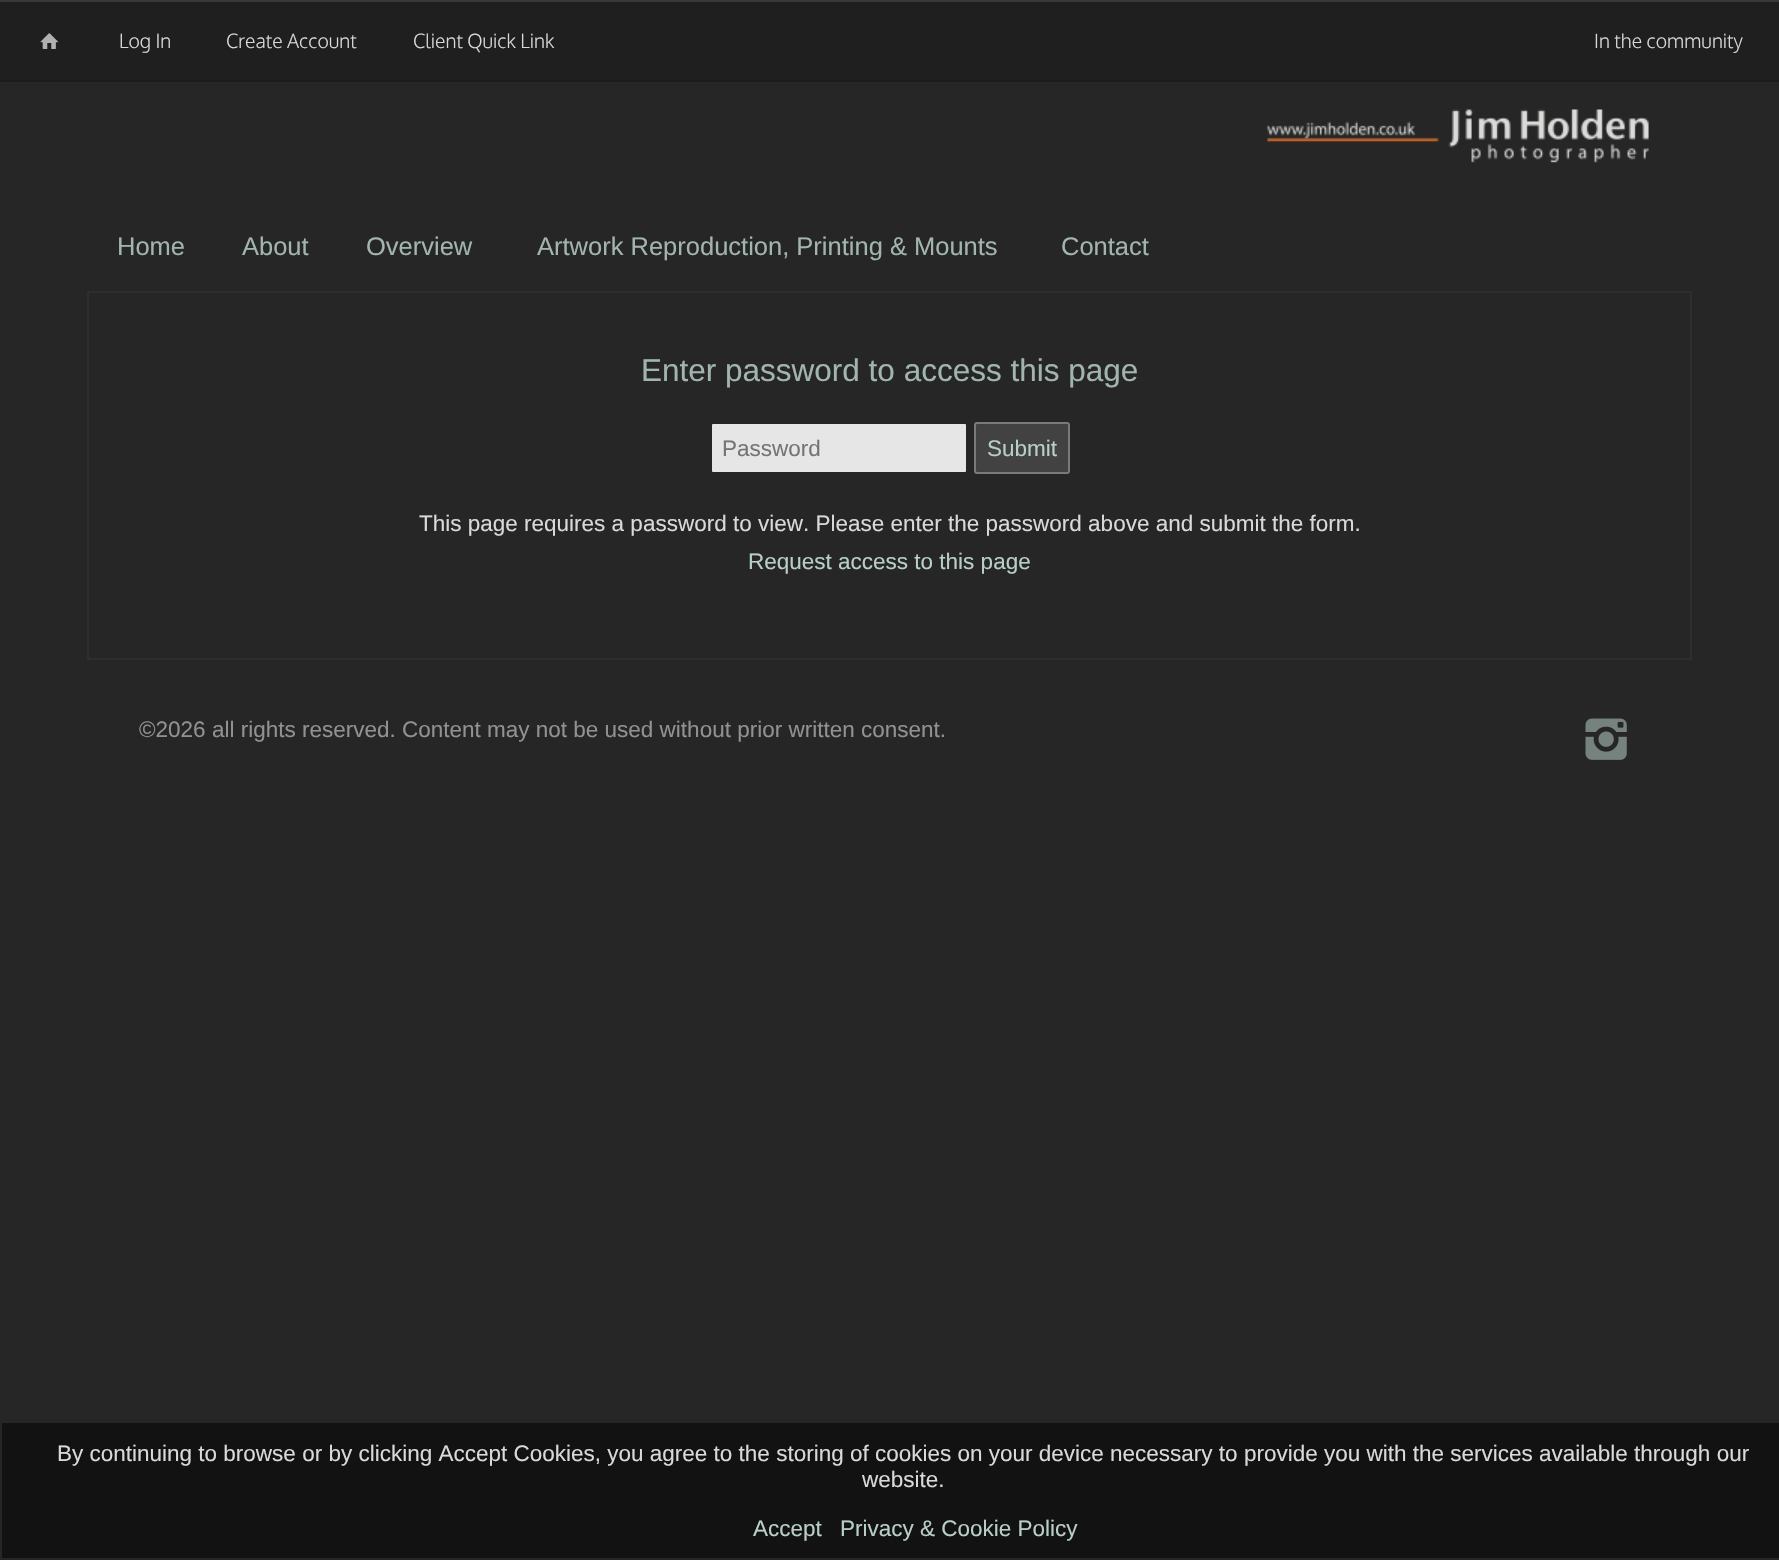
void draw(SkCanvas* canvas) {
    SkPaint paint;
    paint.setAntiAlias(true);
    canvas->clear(0xFF262626);
    paint.setColor(0xFF1F1F1F);
    canvas->drawRect(SkRect::MakeXYWH(0, 2, 1779, 78), paint);
    paint.setColor(0xFF383838);
    canvas->drawRect(SkRect::MakeXYWH(0, 0, 1779, 2), paint);
    paint.setColor(0xFF1C1C1C);
    canvas->drawRect(SkRect::MakeXYWH(0, 80, 1779, 2), paint);
    canvas->drawImageRect(SkImages::DeferredFromEncodedData(SkData::MakeFromFileName("img1.png")), SkRect::MakeXYWH(40, 33, 18, 16), SkSamplingOptions());
    SkFont font1(fontMgr->matchFamilyStyle("Oxygen", SkFontStyle(300, SkFontStyle::kNormal_Width, SkFontStyle::kUpright_Slant)), 19.5f);
    font1.setSubpixel(true);
    paint.setColor(0xFFD9D9D9);
    canvas->drawString("Log In", 119, 48, font1, paint);
    canvas->drawString("Create Account", 226, 48, font1, paint);
    canvas->drawString("Client Quick Link", 413, 48, font1, paint);
    canvas->drawString("In the community", 1594, 48, font1, paint);
    canvas->drawImageRect(SkImages::DeferredFromEncodedData(SkData::MakeFromFileName("img2.png")), SkRect::MakeXYWH(1267, 109, 382, 54), SkSamplingOptions());
    SkFont font2(fontMgr->matchFamilyStyle("Liberation Sans", SkFontStyle::Normal()), 25.5f);
    font2.setSubpixel(true);
    paint.setColor(0xFFA1B5AE);
    canvas->drawString("Home", 117, 255, font2, paint);
    canvas->drawString("About", 242, 255, font2, paint);
    canvas->drawString("Overview", 366, 255, font2, paint);
    canvas->drawString("Artwork Reproduction, Printing & Mounts", 537, 255, font2, paint);
    canvas->drawString("Contact", 1061, 255, font2, paint);
    paint.setStyle(SkPaint::kStroke_Style);
    paint.setStrokeWidth(2);
    paint.setColor(0xFF2E2E2E);
    canvas->drawRect(SkRect::MakeXYWH(88, 292, 1603, 367), paint);
    SkFont font3(fontMgr->matchFamilyStyle("Liberation Sans", SkFontStyle::Normal()), 31.5f);
    font3.setSubpixel(true);
    paint.setStyle(SkPaint::kFill_Style);
    paint.setColor(0xFFA1B5AE);
    canvas->drawString("Enter password to access this page", 641, 381, font3, paint);
    paint.setColor(0xFFE6E6E6);
    canvas->drawRoundRect(SkRect::MakeXYWH(711, 423, 256, 50), 2, 2, paint);
    paint.setStyle(SkPaint::kStroke_Style);
    paint.setColor(0xFF262626);
    canvas->drawRoundRect(SkRect::MakeXYWH(711, 423, 256, 50), 2, 2, paint);
    SkFont font4(fontMgr->matchFamilyStyle("Liberation Sans", SkFontStyle::Normal()), 22.5f);
    font4.setSubpixel(true);
    paint.setStyle(SkPaint::kFill_Style);
    paint.setColor(0xFF757575);
    canvas->drawString("Password", 722, 456, font4, paint);
    paint.setColor(0xFF424242);
    canvas->drawRoundRect(SkRect::MakeXYWH(975, 423, 94, 50), 2, 2, paint);
    paint.setStyle(SkPaint::kStroke_Style);
    paint.setColor(0xFF7A7A7A);
    canvas->drawRoundRect(SkRect::MakeXYWH(975, 423, 94, 50), 2, 2, paint);
    paint.setStyle(SkPaint::kFill_Style);
    paint.setColor(0xFFB8CFC6);
    canvas->drawString("Submit", 987, 456, font4, paint);
    paint.setColor(0xFFD9D9D9);
    canvas->drawString("This page requires a password to view. Please enter the password above and submit the form.", 419, 531, font4, paint);
    paint.setColor(0xFFB8CFC6);
    canvas->drawString("Request access to this page", 748, 569, font4, paint);
    paint.setColor(0xFF919191);
    canvas->drawString("©2026 all rights reserved. Content may not be used without prior written consent.", 139, 737, font4, paint);
    canvas->drawImageRect(SkImages::DeferredFromEncodedData(SkData::MakeFromFileName("img3.png")), SkRect::MakeXYWH(1585, 718, 42, 42), SkSamplingOptions());
    paint.setColor(0xFF121212);
    canvas->drawRect(SkRect::MakeXYWH(2, 1423, 1777, 135), paint);
    paint.setColor(0xFFD9D9D9);
    canvas->drawString("By continuing to browse or by clicking Accept Cookies, you agree to the storing of cookies on your device necessary to provide you with the services available through our", 57, 1461, font4, paint);
    canvas->drawString("website.", 862, 1487, font4, paint);
    paint.setColor(0xFFB8CFC6);
    canvas->drawString("Accept", 753, 1536, font4, paint);
    canvas->drawString("Privacy & Cookie Policy", 840, 1536, font4, paint);
}
